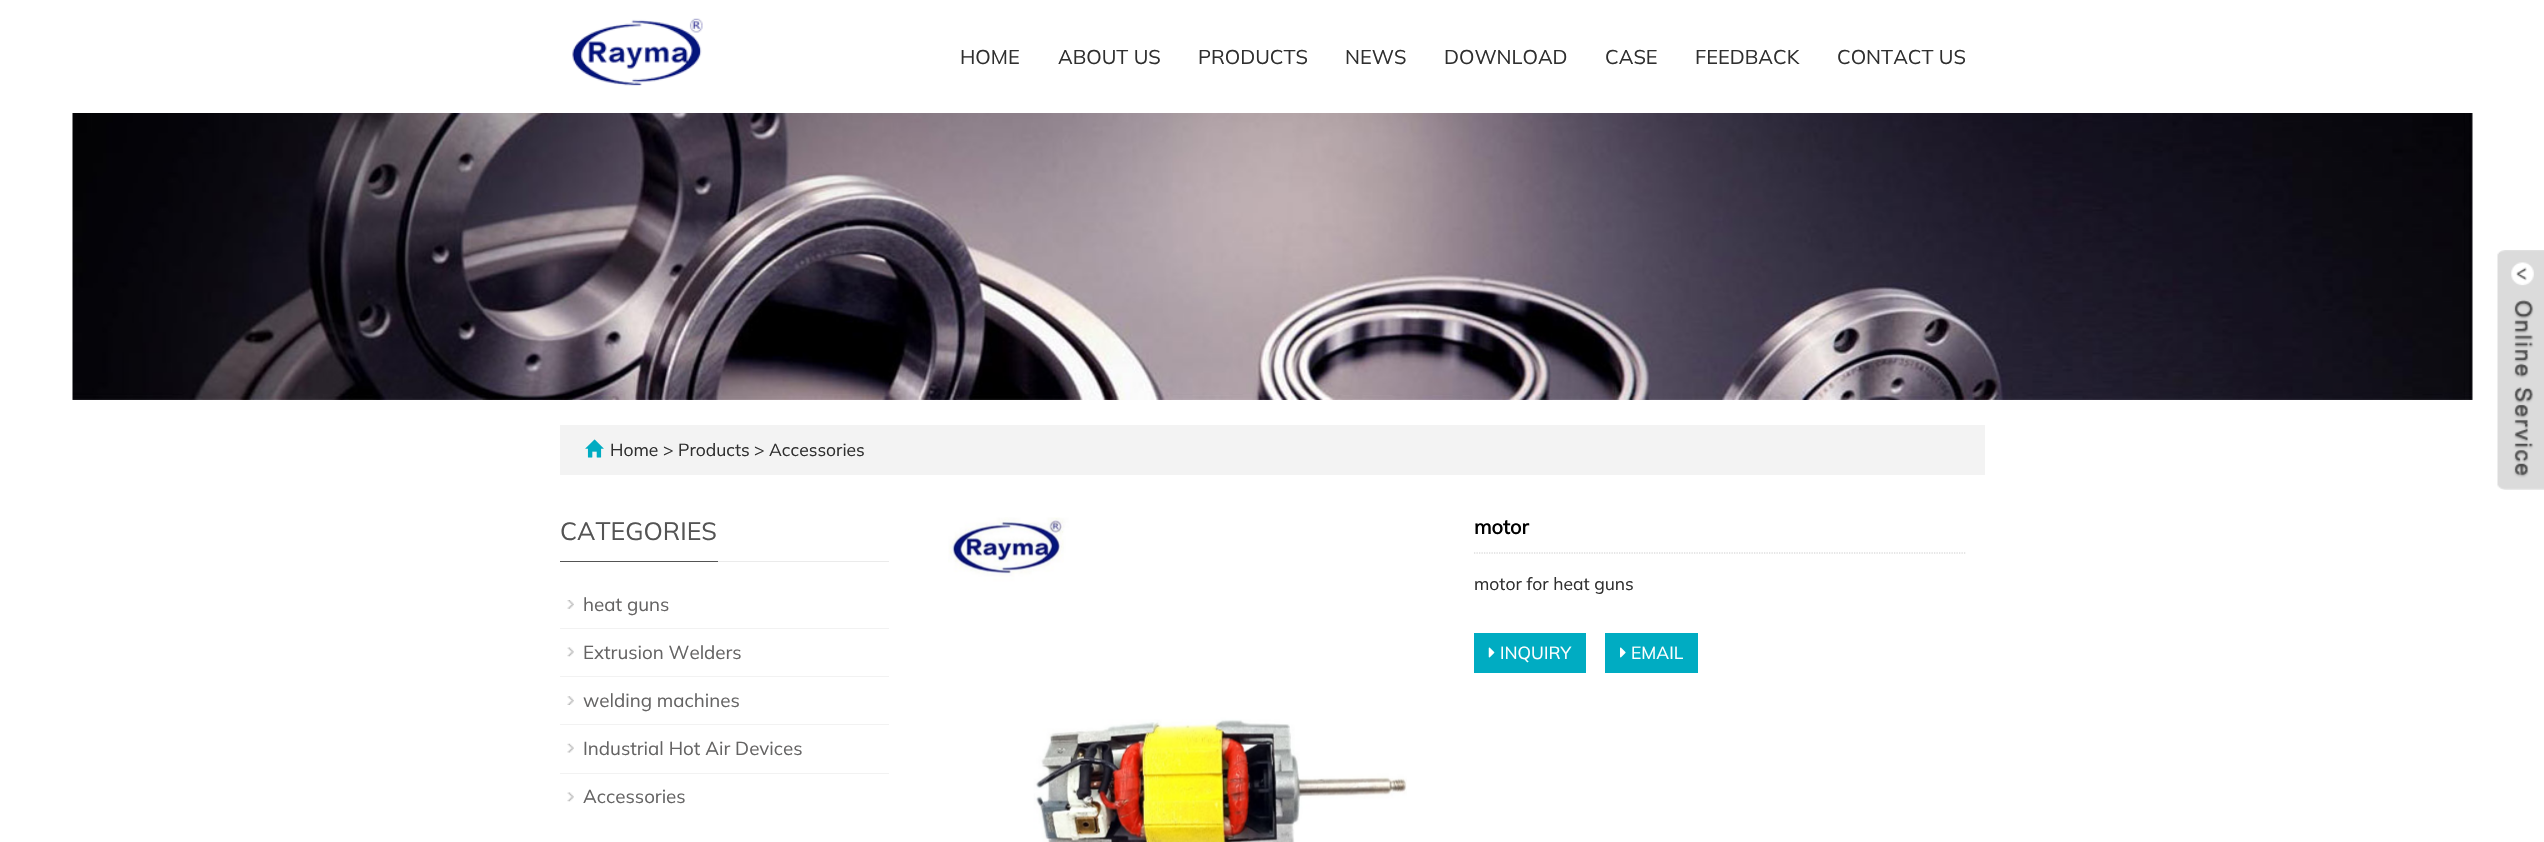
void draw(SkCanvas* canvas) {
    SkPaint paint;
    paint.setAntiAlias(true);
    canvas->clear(0xFFFFFFFF);
    canvas->drawImageRect(SkImages::DeferredFromEncodedData(SkData::MakeFromFileName("img1.png")), SkRect::MakeXYWH(572, 18, 131, 68), SkSamplingOptions());
    SkFont font1(fontMgr->matchFamilyStyle("Mulish", SkFontStyle(200, SkFontStyle::kNormal_Width, SkFontStyle::kUpright_Slant)), 20);
    font1.setSubpixel(true);
    paint.setColor(0xFF2F2F2F);
    canvas->drawString("HOME", 960, 64, font1, paint);
    canvas->drawString("ABOUT US", 1058, 64, font1, paint);
    canvas->drawString("PRODUCTS", 1198, 64, font1, paint);
    canvas->drawString("NEWS", 1345, 64, font1, paint);
    canvas->drawString("DOWNLOAD", 1444, 64, font1, paint);
    canvas->drawString("CASE", 1605, 64, font1, paint);
    canvas->drawString("FEEDBACK", 1695, 64, font1, paint);
    canvas->drawString("CONTACT US", 1837, 64, font1, paint);
    canvas->drawImageRect(SkImages::DeferredFromEncodedData(SkData::MakeFromFileName("img2.png")), SkRect::MakeXYWH(72, 113, 2401, 287), SkSamplingOptions());
    canvas->drawImageRect(SkImages::DeferredFromEncodedData(SkData::MakeFromFileName("img3.png")), SkRect::MakeXYWH(2497, 250, 47, 240), SkSamplingOptions());
    paint.setColor(0xFFF3F3F3);
    canvas->drawRect(SkRect::MakeXYWH(560, 425, 1425, 50), paint);
    canvas->drawImageRect(SkImages::DeferredFromEncodedData(SkData::MakeFromFileName("img4.png")), SkRect::MakeXYWH(585, 439, 19, 19), SkSamplingOptions());
    SkFont font2(fontMgr->matchFamilyStyle("Mulish", SkFontStyle(200, SkFontStyle::kNormal_Width, SkFontStyle::kUpright_Slant)), 17.5f);
    font2.setSubpixel(true);
    paint.setColor(0xFF2F2F2F);
    canvas->drawString("Home", 610, 456, font2, paint);
    canvas->drawString(">", 663, 456, font2, paint);
    canvas->drawString("Products", 678, 456, font2, paint);
    canvas->drawString(">", 754, 456, font2, paint);
    canvas->drawString("Accessories", 769, 456, font2, paint);
    paint.setColor(0xFFEBEBEB);
    canvas->drawRect(SkRect::MakeXYWH(718, 561, 171, 1), paint);
    paint.setColor(0xFF545454);
    canvas->drawRect(SkRect::MakeXYWH(560, 561, 158, 1), paint);
    SkFont font3(fontMgr->matchFamilyStyle("Mulish", SkFontStyle(200, SkFontStyle::kNormal_Width, SkFontStyle::kUpright_Slant)), 25);
    font3.setSubpixel(true);
    canvas->drawString("CATEGORIES", 560, 540, font3, paint);
    canvas->drawImageRect(SkImages::DeferredFromEncodedData(SkData::MakeFromFileName("img5.png")), SkRect::MakeXYWH(567, 600, 7, 9), SkSamplingOptions());
    paint.setColor(0xFFF2F2F2);
    canvas->drawRect(SkRect::MakeXYWH(560, 628, 329, 1), paint);
    SkFont font4(fontMgr->matchFamilyStyle("Mulish", SkFontStyle(200, SkFontStyle::kNormal_Width, SkFontStyle::kUpright_Slant)), 18.75f);
    font4.setSubpixel(true);
    paint.setColor(0xFF656464);
    canvas->drawString("heat guns", 583, 611, font4, paint);
    canvas->drawImageRect(SkImages::DeferredFromEncodedData(SkData::MakeFromFileName("img6.png")), SkRect::MakeXYWH(567, 647, 7, 10), SkSamplingOptions());
    paint.setColor(0xFFF2F2F2);
    canvas->drawRect(SkRect::MakeXYWH(560, 676, 329, 1), paint);
    paint.setColor(0xFF656464);
    canvas->drawString("Extrusion Welders", 583, 659, font4, paint);
    canvas->drawImageRect(SkImages::DeferredFromEncodedData(SkData::MakeFromFileName("img7.png")), SkRect::MakeXYWH(567, 696, 7, 9), SkSamplingOptions());
    paint.setColor(0xFFF2F2F2);
    canvas->drawRect(SkRect::MakeXYWH(560, 724, 329, 1), paint);
    paint.setColor(0xFF656464);
    canvas->drawString("welding machines", 583, 707, font4, paint);
    canvas->drawImageRect(SkImages::DeferredFromEncodedData(SkData::MakeFromFileName("img8.png")), SkRect::MakeXYWH(567, 743, 7, 10), SkSamplingOptions());
    paint.setColor(0xFFF2F2F2);
    canvas->drawRect(SkRect::MakeXYWH(560, 773, 329, 1), paint);
    paint.setColor(0xFF656464);
    canvas->drawString("Industrial Hot Air Devices", 583, 755, font4, paint);
    canvas->drawImageRect(SkImages::DeferredFromEncodedData(SkData::MakeFromFileName("img6.png")), SkRect::MakeXYWH(567, 792, 7, 10), SkSamplingOptions());
    canvas->drawString("Accessories", 583, 803, font4, paint);
    canvas->drawImageRect(SkImages::DeferredFromEncodedData(SkData::MakeFromFileName("img9.png")), SkRect::MakeXYWH(948, 517, 459, 325), SkSamplingOptions());
    paint.setStyle(SkPaint::kStroke_Style);
    paint.setStrokeWidth(1.2f);
    paint.setColor(0xFFCCCCCC);
    paint.setPathEffect(SkDashPathEffect::Make({{1.25f, 1.25f}}, 0));
    canvas->drawPath(SkPathBuilder().moveTo(1474, 553).lineTo(1966, 553).detach(), paint);
    paint.setPathEffect(nullptr);
    SkFont font5(fontMgr->matchFamilyStyle("Mulish", SkFontStyle::Bold()), 20);
    font5.setSubpixel(true);
    paint.setStyle(SkPaint::kFill_Style);
    paint.setColor(0xFF000000);
    canvas->drawString("motor", 1474, 534, font5, paint);
    paint.setColor(0xFF2F2F2F);
    canvas->drawString("motor for heat guns", 1474, 590, font2, paint);
    paint.setColor(0xFF00ACC2);
    canvas->drawRect(SkRect::MakeXYWH(1474, 633, 112, 40), paint);
    canvas->drawImageRect(SkImages::DeferredFromEncodedData(SkData::MakeFromFileName("img10.png")), SkRect::MakeXYWH(1488, 647, 7, 11), SkSamplingOptions());
    paint.setColor(0xFFFFFFFF);
    canvas->drawString("INQUIRY", 1500, 659, font2, paint);
    paint.setColor(0xFF00ACC2);
    canvas->drawRect(SkRect::MakeXYWH(1605, 633, 93, 40), paint);
    canvas->drawImageRect(SkImages::DeferredFromEncodedData(SkData::MakeFromFileName("img11.png")), SkRect::MakeXYWH(1620, 647, 6, 11), SkSamplingOptions());
    paint.setColor(0xFFFFFFFF);
    canvas->drawString("EMAIL", 1631, 659, font2, paint);
}
